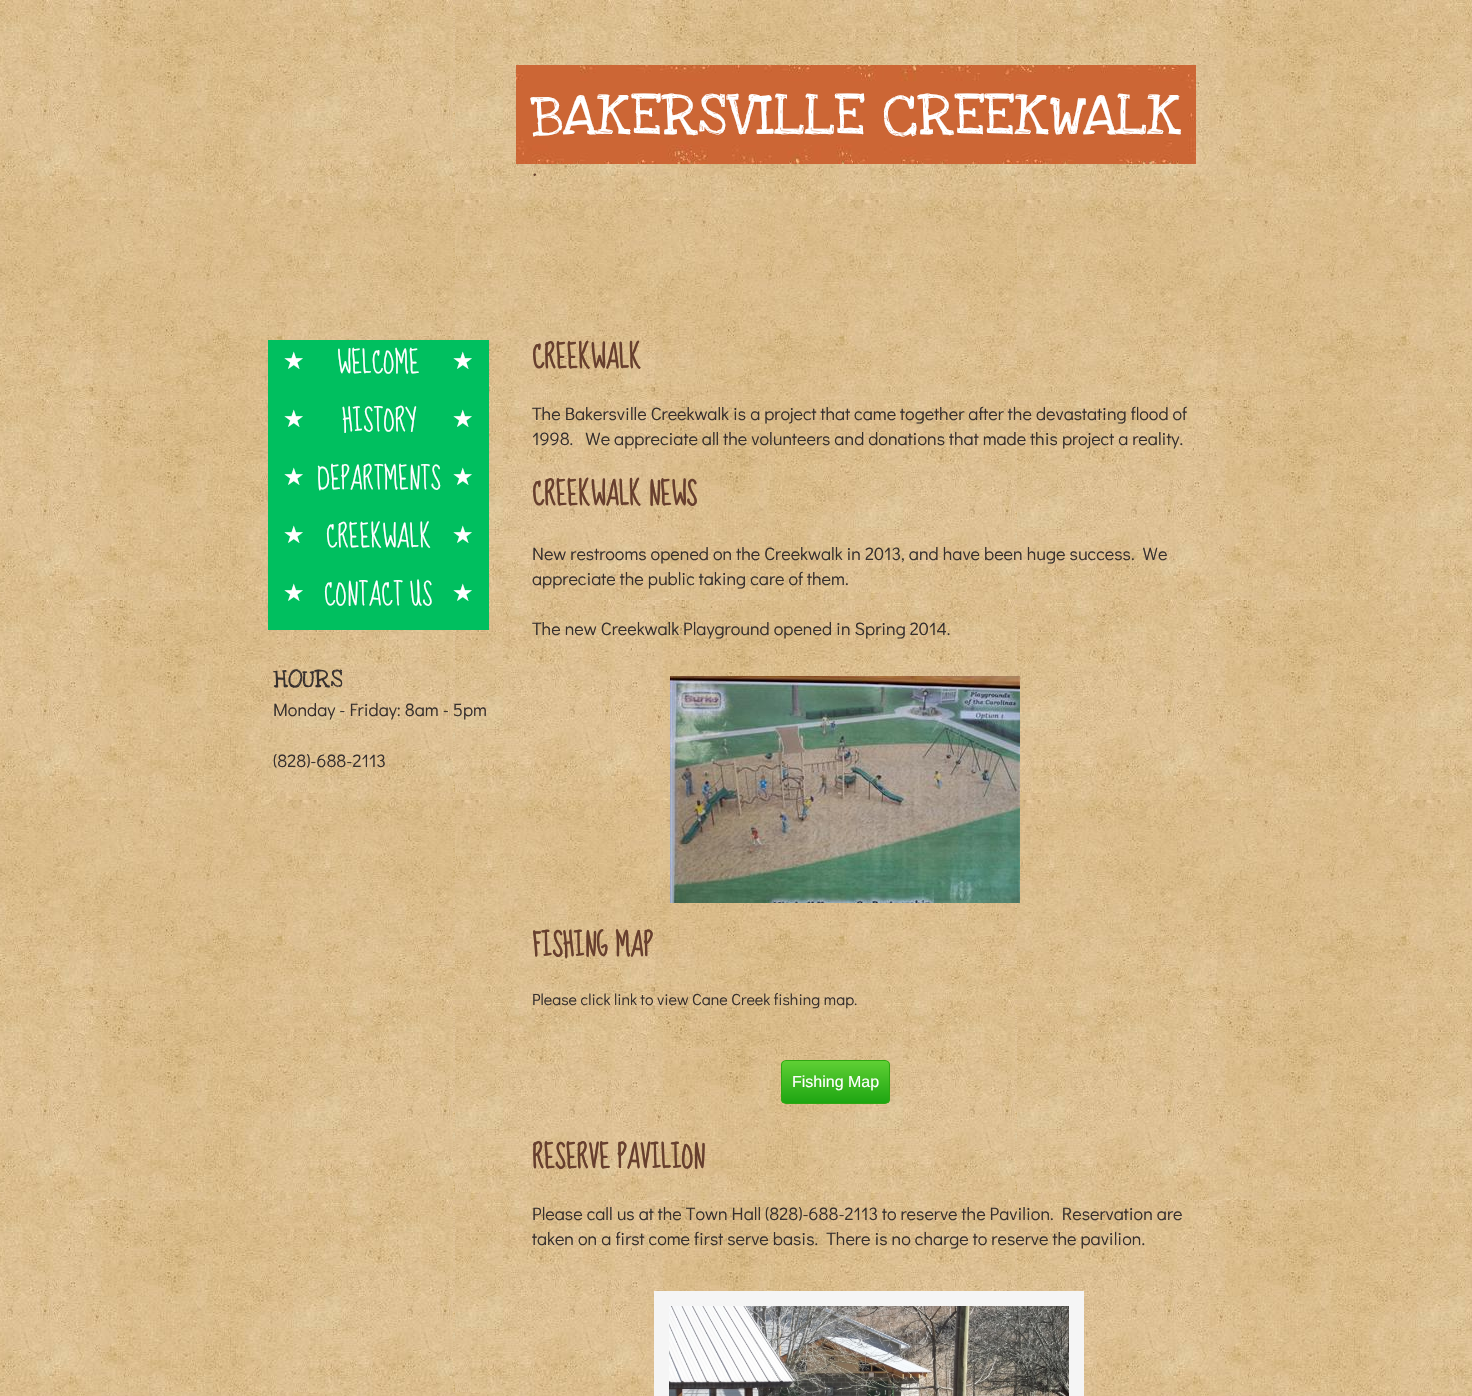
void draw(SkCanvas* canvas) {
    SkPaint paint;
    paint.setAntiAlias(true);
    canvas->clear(0xFFFFFFFF);
    canvas->drawImageRect(SkImages::DeferredFromEncodedData(SkData::MakeFromFileName("img1.png")), SkRect::MakeXYWH(0, 0, 1472, 1396), SkSamplingOptions());
    canvas->drawImageRect(SkImages::DeferredFromEncodedData(SkData::MakeFromFileName("img2.png")), SkRect::MakeXYWH(516, 65, 680, 99), SkSamplingOptions());
    SkFont font1(fontMgr->matchFamilyStyle("Love Ya Like A Sister", SkFontStyle::Normal()), 60);
    font1.setSubpixel(true);
    paint.setColor(0xFFFFFFFF);
    canvas->drawString("BAKERSVILLE CREEKWALK", 531, 134, font1, paint);
    SkFont font2(fontMgr->matchFamilyStyle("Sue Ellen Francisco", SkFontStyle::Bold()), 28);
    font2.setSubpixel(true);
    paint.setColor(0xFF673F2E);
    canvas->drawString(".", 531, 176, font2, paint);
    paint.setColor(0xFF00BF5F);
    canvas->drawRect(SkRect::MakeXYWH(268, 340, 221, 290), paint);
    SkFont font3(fontMgr->matchFamilyStyle("DejaVu Sans", SkFontStyle::Normal()), 24);
    font3.setSubpixel(true);
    paint.setColor(0xFFFFFFFF);
    canvas->drawString("★", 283, 369, font3, paint);
    SkFont font4(fontMgr->matchFamilyStyle("Sue Ellen Francisco", SkFontStyle::Normal()), 27);
    font4.setSubpixel(true);
    canvas->drawString("WELCOME", 337, 373, font4, paint);
    canvas->drawString("★", 452, 369, font3, paint);
    canvas->drawString("★", 283, 427, font3, paint);
    canvas->drawString("HISTORY", 342, 431, font4, paint);
    canvas->drawString("★", 452, 427, font3, paint);
    canvas->drawString("★", 283, 485, font3, paint);
    canvas->drawString("DEPARTMENTS", 317, 489, font4, paint);
    canvas->drawString("★", 452, 485, font3, paint);
    canvas->drawString("★", 283, 543, font3, paint);
    canvas->drawString("CREEKWALK", 326, 547, font4, paint);
    canvas->drawString("★", 452, 543, font3, paint);
    canvas->drawString("★", 283, 601, font3, paint);
    canvas->drawString("CONTACT US", 324, 605, font4, paint);
    canvas->drawString("★", 452, 601, font3, paint);
    paint.setColor(0xFF673F2E);
    canvas->drawString("CREEKWALK", 532, 368, font2, paint);
    SkFont font5(fontMgr->matchFamilyStyle("Didact Gothic", SkFontStyle::Normal()), 18);
    font5.setSubpixel(true);
    paint.setColor(0xFF362F2D);
    canvas->drawString("The Bakersville Creekwalk is a project that came together after the devastating flood of", 532, 420, font5, paint);
    canvas->drawString("1998.   We appreciate all the volunteers and donations that made this project a reality.", 532, 445, font5, paint);
    paint.setColor(0xFF673F2E);
    canvas->drawString("CREEKWALK NEWS", 532, 505, font2, paint);
    paint.setColor(0xFF362F2D);
    canvas->drawString("New restrooms opened on the Creekwalk in 2013, and have been huge success.  We", 532, 560, font5, paint);
    canvas->drawString("appreciate the public taking care of them.", 532, 585, font5, paint);
    canvas->drawString("The new Creekwalk Playground opened in Spring 2014.", 532, 635, font5, paint);
    paint.setColor(0xFF673F2E);
    canvas->drawString("FISHING MAP", 532, 956, font2, paint);
    SkFont font6(fontMgr->matchFamilyStyle("Didact Gothic", SkFontStyle::Normal()), 16);
    font6.setSubpixel(true);
    paint.setColor(0xFF362F2D);
    canvas->drawString("Please click link to view Cane Creek fishing map.", 532, 1005, font6, paint);
    paint.setColor(0xFF673F2E);
    canvas->drawString("RESERVE PAVILION", 532, 1168, font2, paint);
    paint.setColor(0xFF362F2D);
    canvas->drawString("Please call us at the Town Hall (828)-688-2113 to reserve the Pavilion.  Reservation are", 532, 1220, font5, paint);
    canvas->drawString("taken on a first come first serve basis.  There is no charge to reserve the pavilion.", 532, 1245, font5, paint);
    SkFont font7(fontMgr->matchFamilyStyle("Love Ya Like A Sister", SkFontStyle::Normal()), 26);
    font7.setSubpixel(true);
    canvas->drawString("HOURS", 273, 687, font7, paint);
    canvas->drawString("Monday - Friday: 8am - 5pm", 273, 716, font5, paint);
    canvas->drawString("(828)-688-2113", 273, 767, font5, paint);
    canvas->drawImageRect(SkImages::DeferredFromEncodedData(SkData::MakeFromFileName("img3.png")), SkRect::MakeXYWH(670, 676, 350, 227), SkSamplingOptions());
    canvas->save();
    canvas->clipPath(SkPathBuilder().moveTo(786, 1060).lineTo(885, 1060).cubicTo(888, 1060, 890, 1062, 890, 1065).lineTo(890, 1099).cubicTo(890, 1102, 888, 1104, 885, 1104).lineTo(786, 1104).cubicTo(783, 1104, 781, 1102, 781, 1099).lineTo(781, 1065).cubicTo(781, 1062, 783, 1060, 786, 1060).close().detach(), true);
    {
        const SkColor colors[] = {0xFF5FCF34, 0xFF1EA612};
        const float stops[] = {0, 1};
        const SkPoint ends[] = {{836, 1061}, {836, 1103}};
        paint.setShader(SkGradientShader::MakeLinear(ends, colors, stops, 2, SkTileMode::kClamp));
        paint.setAlpha(255);
    }
    canvas->drawRect(SkRect::MakeXYWH(781, 1061, 109, 42), paint);
    canvas->restore();
    paint.setStyle(SkPaint::kStroke_Style);
    paint.setStrokeWidth(1);
    paint.setShader(nullptr);
    paint.setColor(0xFF30A612);
    canvas->drawRoundRect(SkRect::MakeXYWH(781.5f, 1060.5f, 108, 43), 4.5f, 4.5f, paint);
    SkFont font8(fontMgr->matchFamilyStyle("Liberation Sans", SkFontStyle::Normal()), 16);
    font8.setSubpixel(true);
    paint.setStyle(SkPaint::kFill_Style);
    paint.setColor(0xFFFFFFFF);
    canvas->drawString("Fishing Map", 792, 1087, font8, paint);
    paint.setStyle(SkPaint::kStroke_Style);
    paint.setStrokeWidth(15);
    paint.setColor(0xFFF5F5F5);
    canvas->drawRect(SkRect::MakeXYWH(661.5f, 1298.5f, 415, 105), paint);
    canvas->drawImageRect(SkImages::DeferredFromEncodedData(SkData::MakeFromFileName("img4.png")), SkRect::MakeXYWH(669, 1306, 400, 90), SkSamplingOptions());
}
